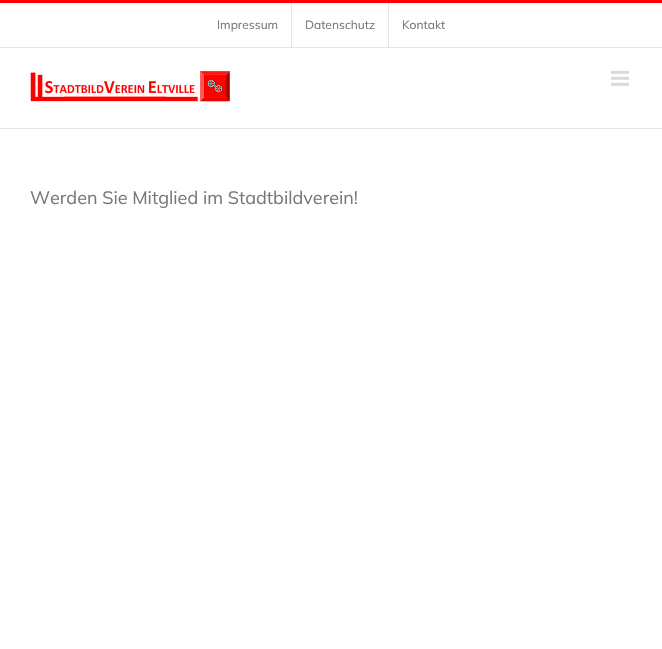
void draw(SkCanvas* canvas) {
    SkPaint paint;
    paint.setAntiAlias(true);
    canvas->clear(0xFFFFFFFF);
    paint.setColor(0xFFFE0000);
    canvas->drawRect(SkRect::MakeXYWH(0, 0, 662, 3), paint);
    paint.setColor(0xFFE5E5E5);
    canvas->drawRect(SkRect::MakeXYWH(0, 47, 662, 1), paint);
    SkFont font1(fontMgr->matchFamilyStyle("Mulish", SkFontStyle::Normal()), 12);
    font1.setSubpixel(true);
    paint.setColor(0xFF777777);
    canvas->drawString("Impressum", 217, 29, font1, paint);
    paint.setColor(0xFFE5E5E5);
    canvas->drawRect(SkRect::MakeXYWH(291, 3, 1, 44), paint);
    paint.setColor(0xFF777777);
    canvas->drawString("Datenschutz", 305, 29, font1, paint);
    paint.setColor(0xFFE5E5E5);
    canvas->drawRect(SkRect::MakeXYWH(388, 3, 1, 44), paint);
    paint.setColor(0xFF777777);
    canvas->drawString("Kontakt", 402, 29, font1, paint);
    paint.setColor(0xFFE5E5E5);
    canvas->drawRect(SkRect::MakeXYWH(0, 128, 662, 1), paint);
    canvas->drawImageRect(SkImages::DeferredFromEncodedData(SkData::MakeFromFileName("img1.png")), SkRect::MakeXYWH(30, 71, 200, 31), SkSamplingOptions());
    canvas->drawImageRect(SkImages::DeferredFromEncodedData(SkData::MakeFromFileName("img2.png")), SkRect::MakeXYWH(611, 70, 18, 16), SkSamplingOptions());
    SkFont font2(fontMgr->matchFamilyStyle("Mulish", SkFontStyle::Normal()), 18);
    font2.setSubpixel(true);
    paint.setColor(0xFF777777);
    canvas->drawString("Werden Sie Mitglied im Stadtbildverein!", 30, 204, font2, paint);
}
